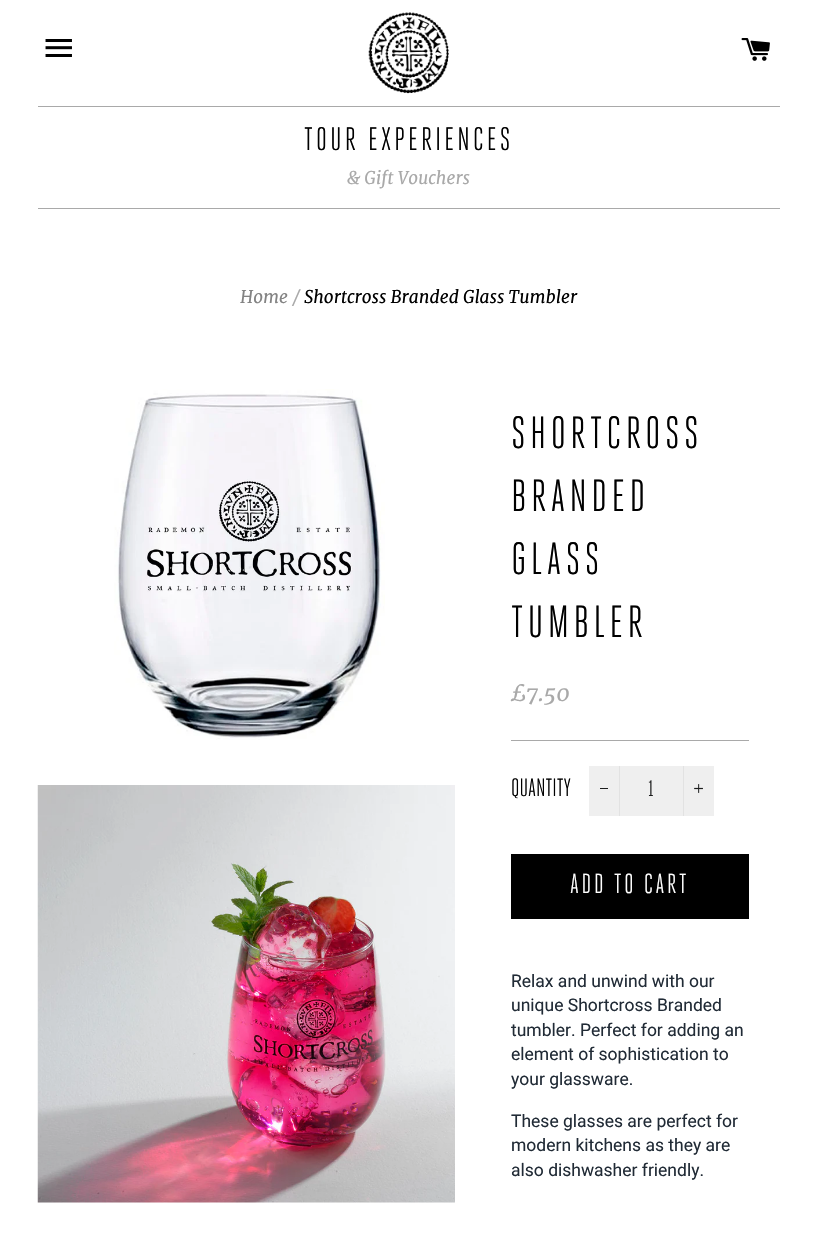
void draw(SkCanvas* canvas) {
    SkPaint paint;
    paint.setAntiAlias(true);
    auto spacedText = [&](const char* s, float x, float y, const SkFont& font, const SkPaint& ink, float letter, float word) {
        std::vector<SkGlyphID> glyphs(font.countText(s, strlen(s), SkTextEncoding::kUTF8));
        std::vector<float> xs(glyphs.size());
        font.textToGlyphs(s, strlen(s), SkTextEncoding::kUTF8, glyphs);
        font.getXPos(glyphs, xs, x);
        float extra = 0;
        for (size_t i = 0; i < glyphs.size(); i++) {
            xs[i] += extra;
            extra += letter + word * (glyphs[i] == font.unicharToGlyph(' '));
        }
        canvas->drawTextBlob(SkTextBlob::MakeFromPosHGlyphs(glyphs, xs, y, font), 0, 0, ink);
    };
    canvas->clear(0xFFFFFFFF);
    canvas->drawImageRect(SkImages::DeferredFromEncodedData(SkData::MakeFromFileName("img1.png")), SkRect::MakeXYWH(45, 39, 27, 18), SkSamplingOptions());
    canvas->drawImageRect(SkImages::DeferredFromEncodedData(SkData::MakeFromFileName("img2.png")), SkRect::MakeXYWH(368, 12, 81, 82), SkSamplingOptions());
    canvas->drawImageRect(SkImages::DeferredFromEncodedData(SkData::MakeFromFileName("img3.png")), SkRect::MakeXYWH(741, 38, 29, 23), SkSamplingOptions());
    paint.setColor(0xFFA9A9A9);
    canvas->drawRect(SkRect::MakeXYWH(38, 106, 742, 1), paint);
    SkFont font1(fontMgr->matchFamilyStyle("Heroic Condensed", SkFontStyle::Normal()), 32.5f);
    font1.setSubpixel(true);
    paint.setColor(0xFF000000);
    spacedText("TOUR EXPERIENCES", 304, 150, font1, paint, 3.25f, 0);
    SkFont font2(fontMgr->matchFamilyStyle("Merriweather", SkFontStyle::Italic()), 17.5f);
    font2.setSubpixel(true);
    paint.setColor(0xFFA9A9A9);
    canvas->drawString("& Gift Vouchers", 347, 184, font2, paint);
    canvas->drawRect(SkRect::MakeXYWH(38, 208, 742, 1), paint);
    paint.setColor(0xFF838383);
    canvas->drawString("Home", 240, 303, font2, paint);
    paint.setColor(0xFFA9A9A9);
    canvas->drawString("/", 293, 303, font2, paint);
    paint.setColor(0xFF000000);
    canvas->drawString("Shortcross Branded Glass Tumbler", 304, 303, font2, paint);
    canvas->drawImageRect(SkImages::DeferredFromEncodedData(SkData::MakeFromFileName("img4.png")), SkRect::MakeXYWH(114, 389, 271, 351), SkSamplingOptions());
    canvas->drawImageRect(SkImages::DeferredFromEncodedData(SkData::MakeFromFileName("img5.png")), SkRect::MakeXYWH(37, 785, 418, 418), SkSamplingOptions());
    SkFont font3(fontMgr->matchFamilyStyle("Heroic Condensed", SkFontStyle::Normal()), 45);
    font3.setSubpixel(true);
    spacedText("SHORTCROSS", 511, 448, font3, paint, 4.5f, 0);
    spacedText("BRANDED", 511, 511, font3, paint, 4.5f, 0);
    spacedText("GLASS", 511, 574, font3, paint, 4.5f, 0);
    spacedText("TUMBLER", 511, 637, font3, paint, 4.5f, 0);
    SkFont font4(fontMgr->matchFamilyStyle("Merriweather", SkFontStyle::Italic()), 22.5f);
    font4.setSubpixel(true);
    paint.setColor(0xFFA9A9A9);
    canvas->drawString("£7.50", 511, 701, font4, paint);
    canvas->drawRect(SkRect::MakeXYWH(511, 740, 238, 1), paint);
    SkFont font5(fontMgr->matchFamilyStyle("Heroic Condensed", SkFontStyle::Normal()), 25);
    font5.setSubpixel(true);
    paint.setColor(0xFF000000);
    canvas->drawString("QUANTITY", 511, 796, font5, paint);
    paint.setColor(0xFFEFEFEF);
    canvas->drawRect(SkRect::MakeXYWH(589, 766, 125, 50), paint);
    paint.setColor(0xFFE2E2E2);
    canvas->drawRect(SkRect::MakeXYWH(619, 766, 1, 50), paint);
    paint.setColor(0xFF1C1D1D);
    canvas->drawRect(SkRect::MakeXYWH(600, 788, 8, 1), paint);
    SkFont font6(fontMgr->matchFamilyStyle("Heroic Condensed", SkFontStyle::Normal()), 22.5f);
    font6.setSubpixel(true);
    canvas->drawString("1", 648, 796, font6, paint);
    paint.setColor(0xFFE2E2E2);
    canvas->drawRect(SkRect::MakeXYWH(683, 766, 1, 50), paint);
    canvas->drawImageRect(SkImages::DeferredFromEncodedData(SkData::MakeFromFileName("img6.png")), SkRect::MakeXYWH(694, 784, 9, 9), SkSamplingOptions());
    paint.setColor(0xFF000000);
    canvas->drawRect(SkRect::MakeXYWH(511, 854, 238, 65), paint);
    SkFont font7(fontMgr->matchFamilyStyle("Heroic Condensed", SkFontStyle::Normal()), 27.5f);
    font7.setSubpixel(true);
    paint.setColor(0xFFFFFFFF);
    spacedText("ADD TO CART", 570, 893, font7, paint, 2.75f, 0);
    SkFont font8(fontMgr->matchFamilyStyle("Roboto", SkFontStyle::Normal()), 17.5f);
    font8.setSubpixel(true);
    paint.setColor(0xFF212B36);
    canvas->drawString("Relax and unwind with our", 511, 987, font8, paint);
    canvas->drawString("unique Shortcross Branded", 511, 1011, font8, paint);
    canvas->drawString("tumbler. Perfect for adding an", 511, 1036, font8, paint);
    canvas->drawString("element of sophistication to", 511, 1060, font8, paint);
    canvas->drawString("your glassware.", 511, 1085, font8, paint);
    canvas->drawString("These glasses are perfect for", 511, 1127, font8, paint);
    canvas->drawString("modern kitchens as they are", 511, 1151, font8, paint);
    canvas->drawString("also dishwasher friendly.", 511, 1176, font8, paint);
}
